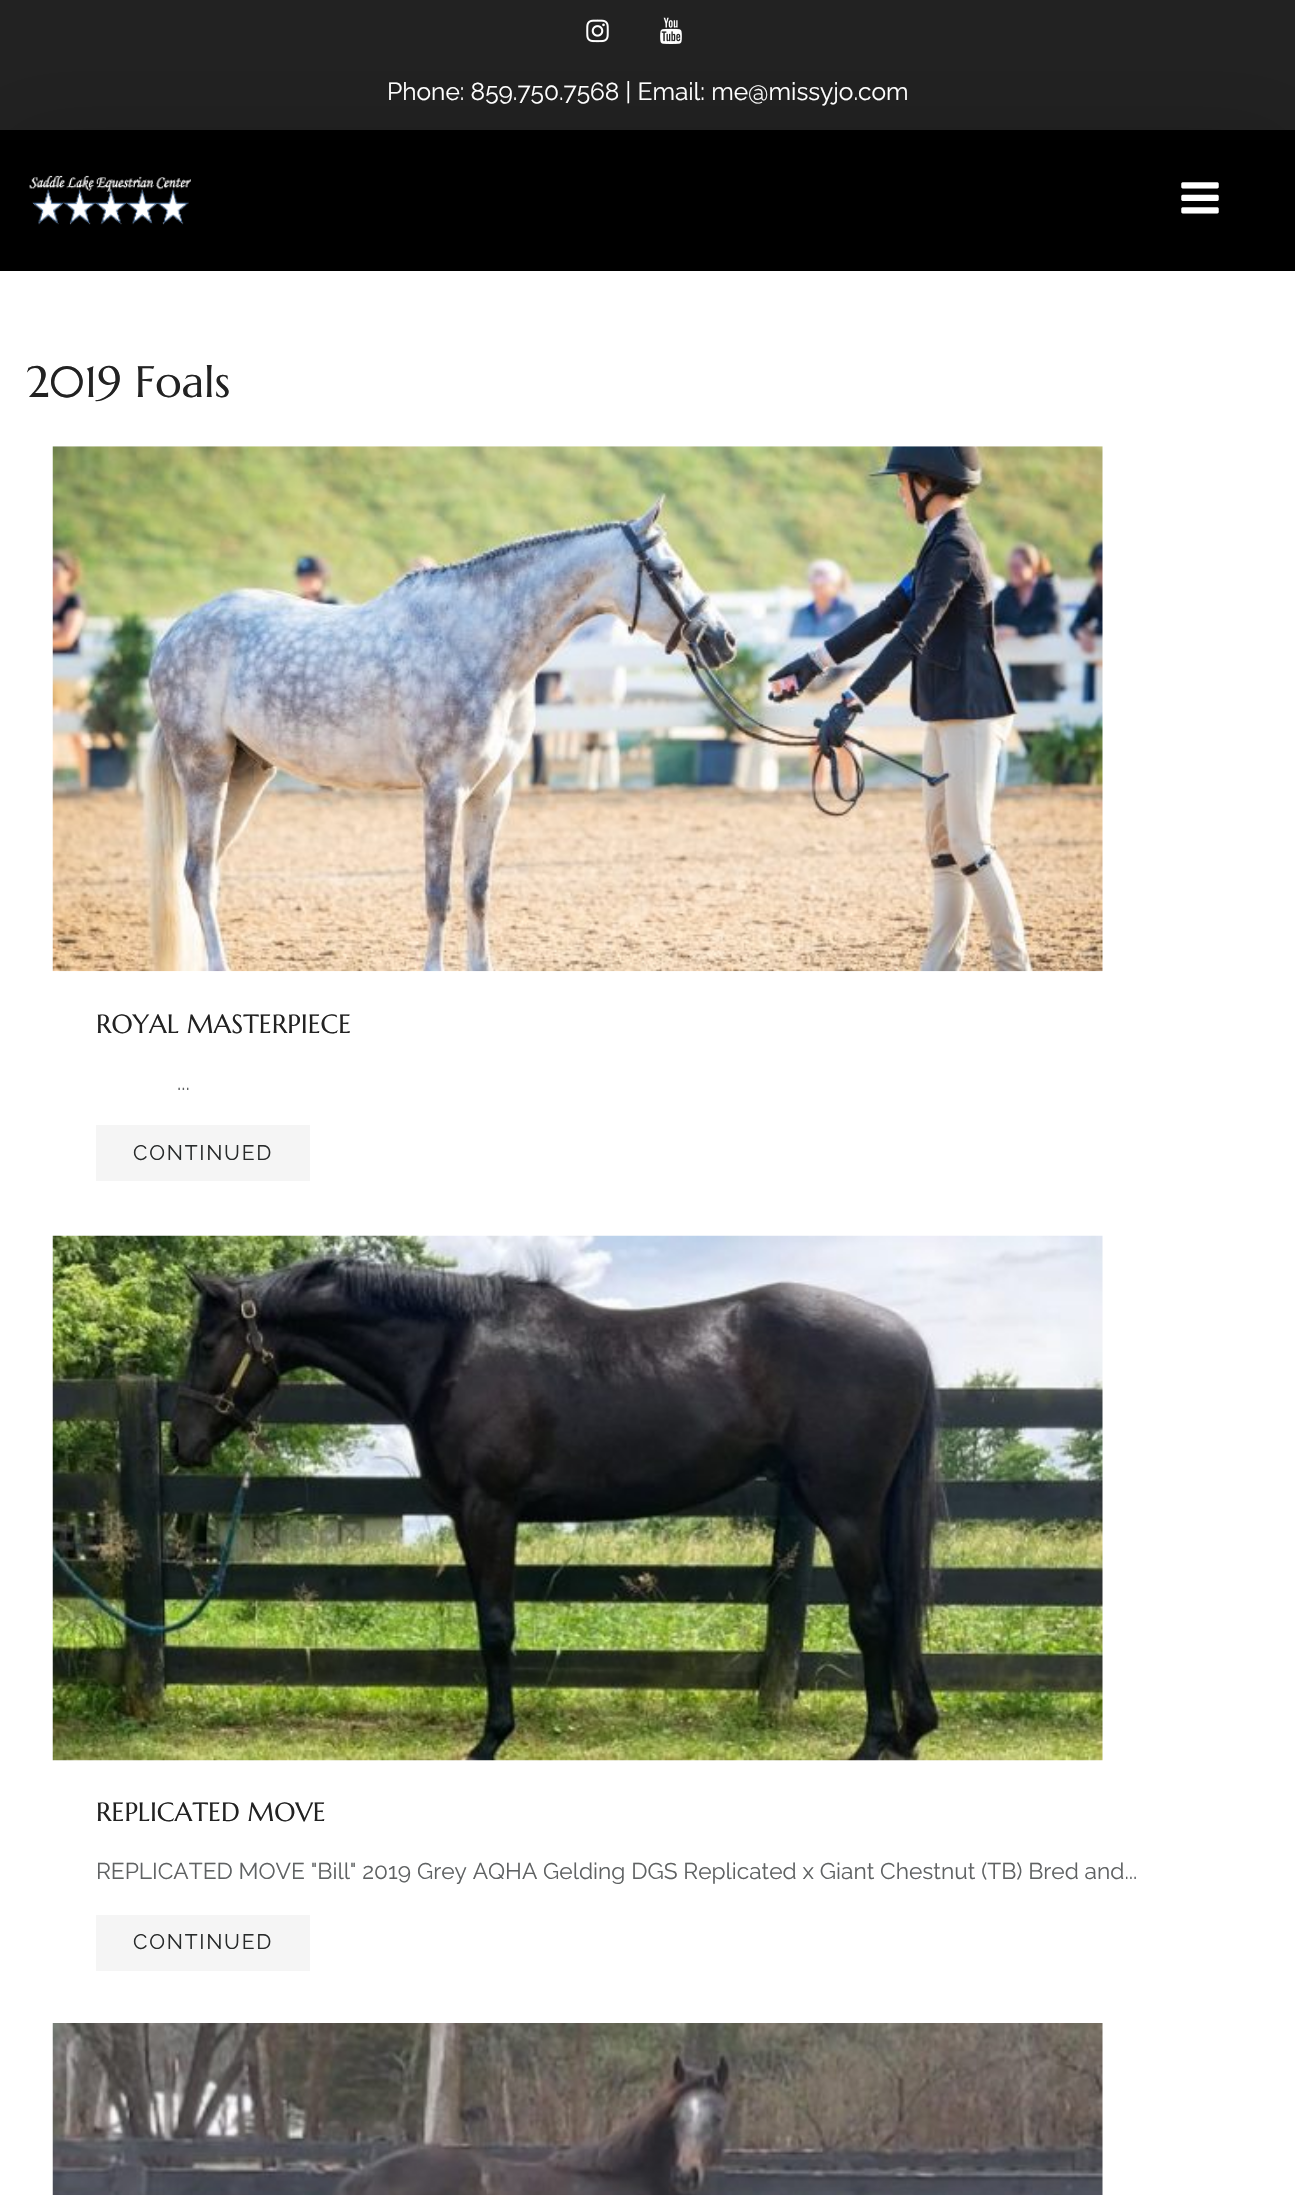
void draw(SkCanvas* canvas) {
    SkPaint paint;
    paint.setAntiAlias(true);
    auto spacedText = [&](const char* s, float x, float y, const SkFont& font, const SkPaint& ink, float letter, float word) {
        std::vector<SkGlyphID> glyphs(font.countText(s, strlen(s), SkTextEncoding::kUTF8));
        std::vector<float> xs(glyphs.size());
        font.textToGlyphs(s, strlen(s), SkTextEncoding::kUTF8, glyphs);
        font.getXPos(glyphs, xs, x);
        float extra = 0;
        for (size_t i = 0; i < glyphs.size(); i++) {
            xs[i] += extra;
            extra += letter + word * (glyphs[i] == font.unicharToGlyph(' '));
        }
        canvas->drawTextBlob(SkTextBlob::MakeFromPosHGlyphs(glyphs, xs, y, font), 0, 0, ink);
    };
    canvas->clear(0xFFFFFFFF);
    paint.setColor(0xFF222222);
    canvas->drawRect(SkRect::MakeXYWH(0, 0, 1295, 130), paint);
    canvas->save();
    canvas->clipRect(SkRect::MakeXYWH(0, 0, 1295, 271));
    paint.setColor(0x26000000);
    paint.setMaskFilter(SkMaskFilter::MakeBlur(kNormal_SkBlurStyle, 44));
    canvas->drawRect(SkRect::MakeXYWH(0, 130, 1295, 141), paint);
    paint.setMaskFilter(nullptr);
    canvas->restore();
    paint.setColor(0xFF000000);
    canvas->drawRect(SkRect::MakeXYWH(0, 130, 1295, 141), paint);
    canvas->drawImageRect(SkImages::DeferredFromEncodedData(SkData::MakeFromFileName("img1.png")), SkRect::MakeXYWH(29, 175, 162, 50), SkSamplingOptions());
    canvas->drawImageRect(SkImages::DeferredFromEncodedData(SkData::MakeFromFileName("img2.png")), SkRect::MakeXYWH(586, 19, 23, 24), SkSamplingOptions());
    canvas->drawImageRect(SkImages::DeferredFromEncodedData(SkData::MakeFromFileName("img3.png")), SkRect::MakeXYWH(660, 17, 22, 27), SkSamplingOptions());
    SkFont font1(fontMgr->matchFamilyStyle("Raleway", SkFontStyle(100, SkFontStyle::kNormal_Width, SkFontStyle::kUpright_Slant)), 24.5f);
    font1.setSubpixel(true);
    paint.setColor(0xFFFFFFFF);
    canvas->drawString("Phone: 859.750.7568 | Email: me@missyjo.com", 387, 100, font1, paint);
    canvas->drawImageRect(SkImages::DeferredFromEncodedData(SkData::MakeFromFileName("img4.png")), SkRect::MakeXYWH(1181, 182, 38, 32), SkSamplingOptions());
    SkFont font2(fontMgr->matchFamilyStyle("Marcellus", SkFontStyle::Normal()), 43.75f);
    font2.setSubpixel(true);
    paint.setColor(0xFF222222);
    canvas->drawString("2019 Foals", 26, 397, font2, paint);
    canvas->drawImageRect(SkImages::DeferredFromEncodedData(SkData::MakeFromFileName("img5.png")), SkRect::MakeXYWH(52, 446, 1051, 526), SkSamplingOptions());
    SkFont font3(fontMgr->matchFamilyStyle("Marcellus", SkFontStyle::Normal()), 26.25f);
    font3.setSubpixel(true);
    canvas->drawString("ROYAL MASTERPIECE", 96, 1033, font3, paint);
    SkFont font4(fontMgr->matchFamilyStyle("Raleway", SkFontStyle(100, SkFontStyle::kNormal_Width, SkFontStyle::kUpright_Slant)), 22.75f);
    font4.setSubpixel(true);
    paint.setColor(0xFF5F6263);
    canvas->drawString("...", 177, 1090, font4, paint);
    paint.setColor(0xFFF5F5F5);
    canvas->drawRect(SkRect::MakeXYWH(96, 1125, 214, 56), paint);
    SkFont font5(fontMgr->matchFamilyStyle("Raleway", SkFontStyle(100, SkFontStyle::kNormal_Width, SkFontStyle::kUpright_Slant)), 21);
    font5.setSubpixel(true);
    paint.setColor(0xFF282B2B);
    spacedText("CONTINUED", 133, 1160, font5, paint, 1.75f, 0);
    canvas->drawImageRect(SkImages::DeferredFromEncodedData(SkData::MakeFromFileName("img6.png")), SkRect::MakeXYWH(52, 1235, 1051, 526), SkSamplingOptions());
    paint.setColor(0xFF222222);
    canvas->drawString("REPLICATED MOVE", 96, 1821, font3, paint);
    paint.setColor(0xFF5F6263);
    canvas->drawString("REPLICATED MOVE \"Bill\" 2019 Grey AQHA Gelding DGS Replicated x Giant Chestnut (TB) Bred and...", 96, 1879, font4, paint);
    paint.setColor(0xFFF5F5F5);
    canvas->drawRect(SkRect::MakeXYWH(96, 1915, 214, 56), paint);
    paint.setColor(0xFF282B2B);
    spacedText("CONTINUED", 133, 1949, font5, paint, 1.75f, 0);
    canvas->drawImageRect(SkImages::DeferredFromEncodedData(SkData::MakeFromFileName("img7.png")), SkRect::MakeXYWH(52, 2023, 1051, 172), SkSamplingOptions());
}
